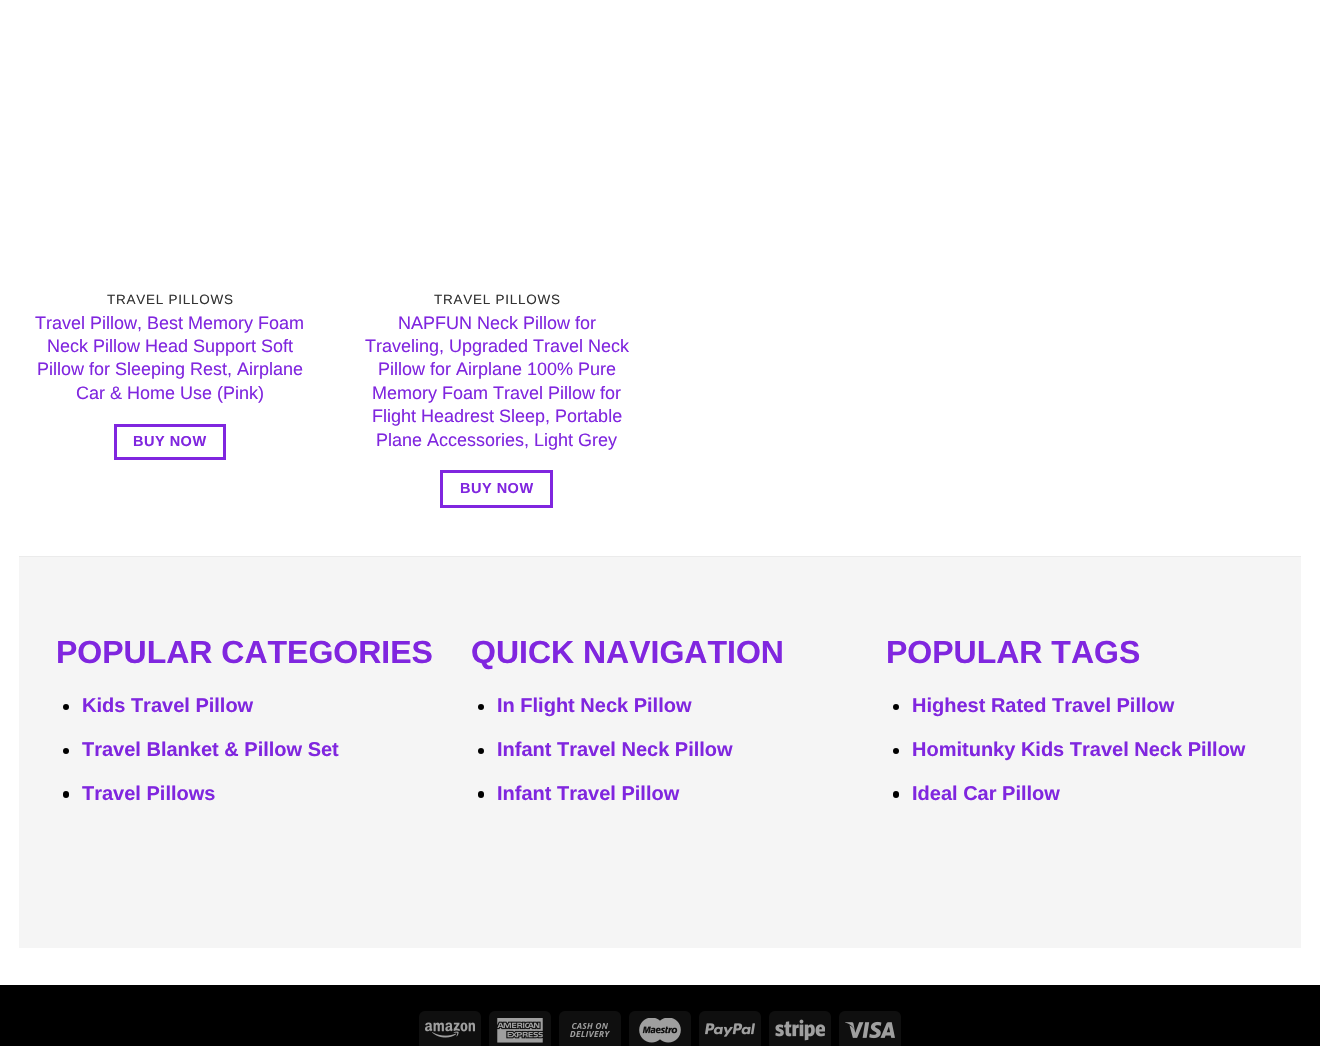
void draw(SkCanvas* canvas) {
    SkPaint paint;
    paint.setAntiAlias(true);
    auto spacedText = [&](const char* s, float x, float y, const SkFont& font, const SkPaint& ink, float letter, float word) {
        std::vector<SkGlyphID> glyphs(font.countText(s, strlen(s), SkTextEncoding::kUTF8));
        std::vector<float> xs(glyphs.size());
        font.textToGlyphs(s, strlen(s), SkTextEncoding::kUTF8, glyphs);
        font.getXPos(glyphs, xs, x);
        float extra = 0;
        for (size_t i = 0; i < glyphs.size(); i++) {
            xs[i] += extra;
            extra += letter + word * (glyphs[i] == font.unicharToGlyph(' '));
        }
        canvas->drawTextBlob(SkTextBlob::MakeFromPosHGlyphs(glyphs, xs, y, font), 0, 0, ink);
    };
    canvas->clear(0xFFFFFFFF);
    SkFont font1(fontMgr->matchFamilyStyle("Liberation Sans", SkFontStyle::Normal()), 13.5f);
    font1.setSubpixel(true);
    paint.setColor(0xFF333333);
    spacedText("TRAVEL PILLOWS", 107, 304, font1, paint, 0.75f, 0);
    SkFont font2(fontMgr->matchFamilyStyle("Liberation Sans", SkFontStyle::Normal()), 18);
    font2.setSubpixel(true);
    paint.setColor(0xFF8026DF);
    canvas->drawString("Travel Pillow, Best Memory Foam", 35, 329, font2, paint);
    canvas->drawString("Neck Pillow Head Support Soft", 47, 352, font2, paint);
    canvas->drawString("Pillow for Sleeping Rest, Airplane", 37, 375, font2, paint);
    canvas->drawString("Car & Home Use (Pink)", 76, 399, font2, paint);
    paint.setStyle(SkPaint::kStroke_Style);
    paint.setStrokeWidth(3);
    canvas->drawRect(SkRect::MakeXYWH(115.5f, 425.5f, 109, 33), paint);
    SkFont font3(fontMgr->matchFamilyStyle("Liberation Sans", SkFontStyle::Bold()), 14.5f);
    font3.setSubpixel(true);
    paint.setStyle(SkPaint::kFill_Style);
    spacedText("BUY NOW", 133, 446, font3, paint, 0.5f, 0);
    paint.setColor(0xFF333333);
    spacedText("TRAVEL PILLOWS", 434, 304, font1, paint, 0.75f, 0);
    paint.setColor(0xFF8026DF);
    canvas->drawString("NAPFUN Neck Pillow for", 398, 329, font2, paint);
    canvas->drawString("Traveling, Upgraded Travel Neck", 365, 352, font2, paint);
    canvas->drawString("Pillow for Airplane 100% Pure", 378, 375, font2, paint);
    canvas->drawString("Memory Foam Travel Pillow for", 372, 399, font2, paint);
    canvas->drawString("Flight Headrest Sleep, Portable", 372, 422, font2, paint);
    canvas->drawString("Plane Accessories, Light Grey", 376, 446, font2, paint);
    paint.setStyle(SkPaint::kStroke_Style);
    canvas->drawRect(SkRect::MakeXYWH(441.5f, 471.5f, 110, 35), paint);
    paint.setStyle(SkPaint::kFill_Style);
    spacedText("BUY NOW", 460, 493, font3, paint, 0.5f, 0);
    paint.setColor(0xFFF5F5F5);
    canvas->drawRect(SkRect::MakeXYWH(19, 557, 1282, 391), paint);
    paint.setColor(0xFFEBEBEB);
    canvas->drawRect(SkRect::MakeXYWH(19, 556, 1282, 1), paint);
    SkFont font4(fontMgr->matchFamilyStyle("Liberation Sans", SkFontStyle::Bold()), 32);
    font4.setSubpixel(true);
    paint.setColor(0xFF8026DF);
    canvas->drawString("POPULAR CATEGORIES", 56, 663, font4, paint);
    paint.setColor(0xFF000000);
    canvas->drawCircle(66, 707, 3, paint);
    SkFont font5(fontMgr->matchFamilyStyle("Liberation Sans", SkFontStyle::Bold()), 20);
    font5.setSubpixel(true);
    paint.setColor(0xFF8026DF);
    canvas->drawString("Kids Travel Pillow", 82, 712, font5, paint);
    paint.setColor(0xFF000000);
    canvas->drawCircle(66, 751, 3, paint);
    paint.setColor(0xFF8026DF);
    canvas->drawString("Travel Blanket & Pillow Set", 82, 756, font5, paint);
    paint.setColor(0xFF000000);
    canvas->drawRoundRect(SkRect::MakeXYWH(63, 791, 6, 7), 3, 3, paint);
    paint.setColor(0xFF8026DF);
    canvas->drawString("Travel Pillows", 82, 800, font5, paint);
    canvas->drawString("QUICK NAVIGATION", 471, 663, font4, paint);
    paint.setColor(0xFF000000);
    canvas->drawCircle(481, 707, 3, paint);
    paint.setColor(0xFF8026DF);
    canvas->drawString("In Flight Neck Pillow", 497, 712, font5, paint);
    paint.setColor(0xFF000000);
    canvas->drawCircle(481, 751, 3, paint);
    paint.setColor(0xFF8026DF);
    canvas->drawString("Infant Travel Neck Pillow", 497, 756, font5, paint);
    paint.setColor(0xFF000000);
    canvas->drawRoundRect(SkRect::MakeXYWH(478, 791, 6, 7), 3, 3, paint);
    paint.setColor(0xFF8026DF);
    canvas->drawString("Infant Travel Pillow", 497, 800, font5, paint);
    canvas->drawString("POPULAR TAGS", 886, 663, font4, paint);
    paint.setColor(0xFF000000);
    canvas->drawCircle(896, 707, 3, paint);
    paint.setColor(0xFF8026DF);
    canvas->drawString("Highest Rated Travel Pillow", 912, 712, font5, paint);
    paint.setColor(0xFF000000);
    canvas->drawCircle(896, 751, 3, paint);
    paint.setColor(0xFF8026DF);
    canvas->drawString("Homitunky Kids Travel Neck Pillow", 912, 756, font5, paint);
    paint.setColor(0xFF000000);
    canvas->drawRoundRect(SkRect::MakeXYWH(893, 791, 6, 7), 3, 3, paint);
    paint.setColor(0xFF8026DF);
    canvas->drawString("Ideal Car Pillow", 912, 800, font5, paint);
    paint.setColor(0xFF000000);
    canvas->drawRect(SkRect::MakeXYWH(0, 985, 1320, 61), paint);
    paint.setColor(0xFF0F0F0F);
    canvas->drawRoundRect(SkRect::MakeXYWH(419, 1011, 62, 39), 6, 6, paint);
    canvas->drawImageRect(SkImages::DeferredFromEncodedData(SkData::MakeFromFileName("img1.png")), SkRect::MakeXYWH(425, 1022, 50, 16), SkSamplingOptions());
    canvas->drawRoundRect(SkRect::MakeXYWH(489, 1011, 62, 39), 6, 6, paint);
    canvas->drawImageRect(SkImages::DeferredFromEncodedData(SkData::MakeFromFileName("img2.png")), SkRect::MakeXYWH(497, 1018, 46, 25), SkSamplingOptions());
    canvas->drawRoundRect(SkRect::MakeXYWH(559, 1011, 62, 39), 6, 6, paint);
    canvas->drawImageRect(SkImages::DeferredFromEncodedData(SkData::MakeFromFileName("img3.png")), SkRect::MakeXYWH(570, 1023, 40, 14), SkSamplingOptions());
    canvas->drawRoundRect(SkRect::MakeXYWH(629, 1011, 62, 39), 6, 6, paint);
    canvas->drawImageRect(SkImages::DeferredFromEncodedData(SkData::MakeFromFileName("img4.png")), SkRect::MakeXYWH(639, 1018, 42, 25), SkSamplingOptions());
    canvas->drawRoundRect(SkRect::MakeXYWH(699, 1011, 62, 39), 6, 6, paint);
    canvas->drawImageRect(SkImages::DeferredFromEncodedData(SkData::MakeFromFileName("img5.png")), SkRect::MakeXYWH(705, 1023, 50, 14), SkSamplingOptions());
    canvas->drawRoundRect(SkRect::MakeXYWH(769, 1011, 62, 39), 6, 6, paint);
    canvas->drawImageRect(SkImages::DeferredFromEncodedData(SkData::MakeFromFileName("img6.png")), SkRect::MakeXYWH(775, 1019, 50, 22), SkSamplingOptions());
    canvas->drawRoundRect(SkRect::MakeXYWH(839, 1011, 62, 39), 6, 6, paint);
    canvas->drawImageRect(SkImages::DeferredFromEncodedData(SkData::MakeFromFileName("img7.png")), SkRect::MakeXYWH(845, 1021, 50, 18), SkSamplingOptions());
}
